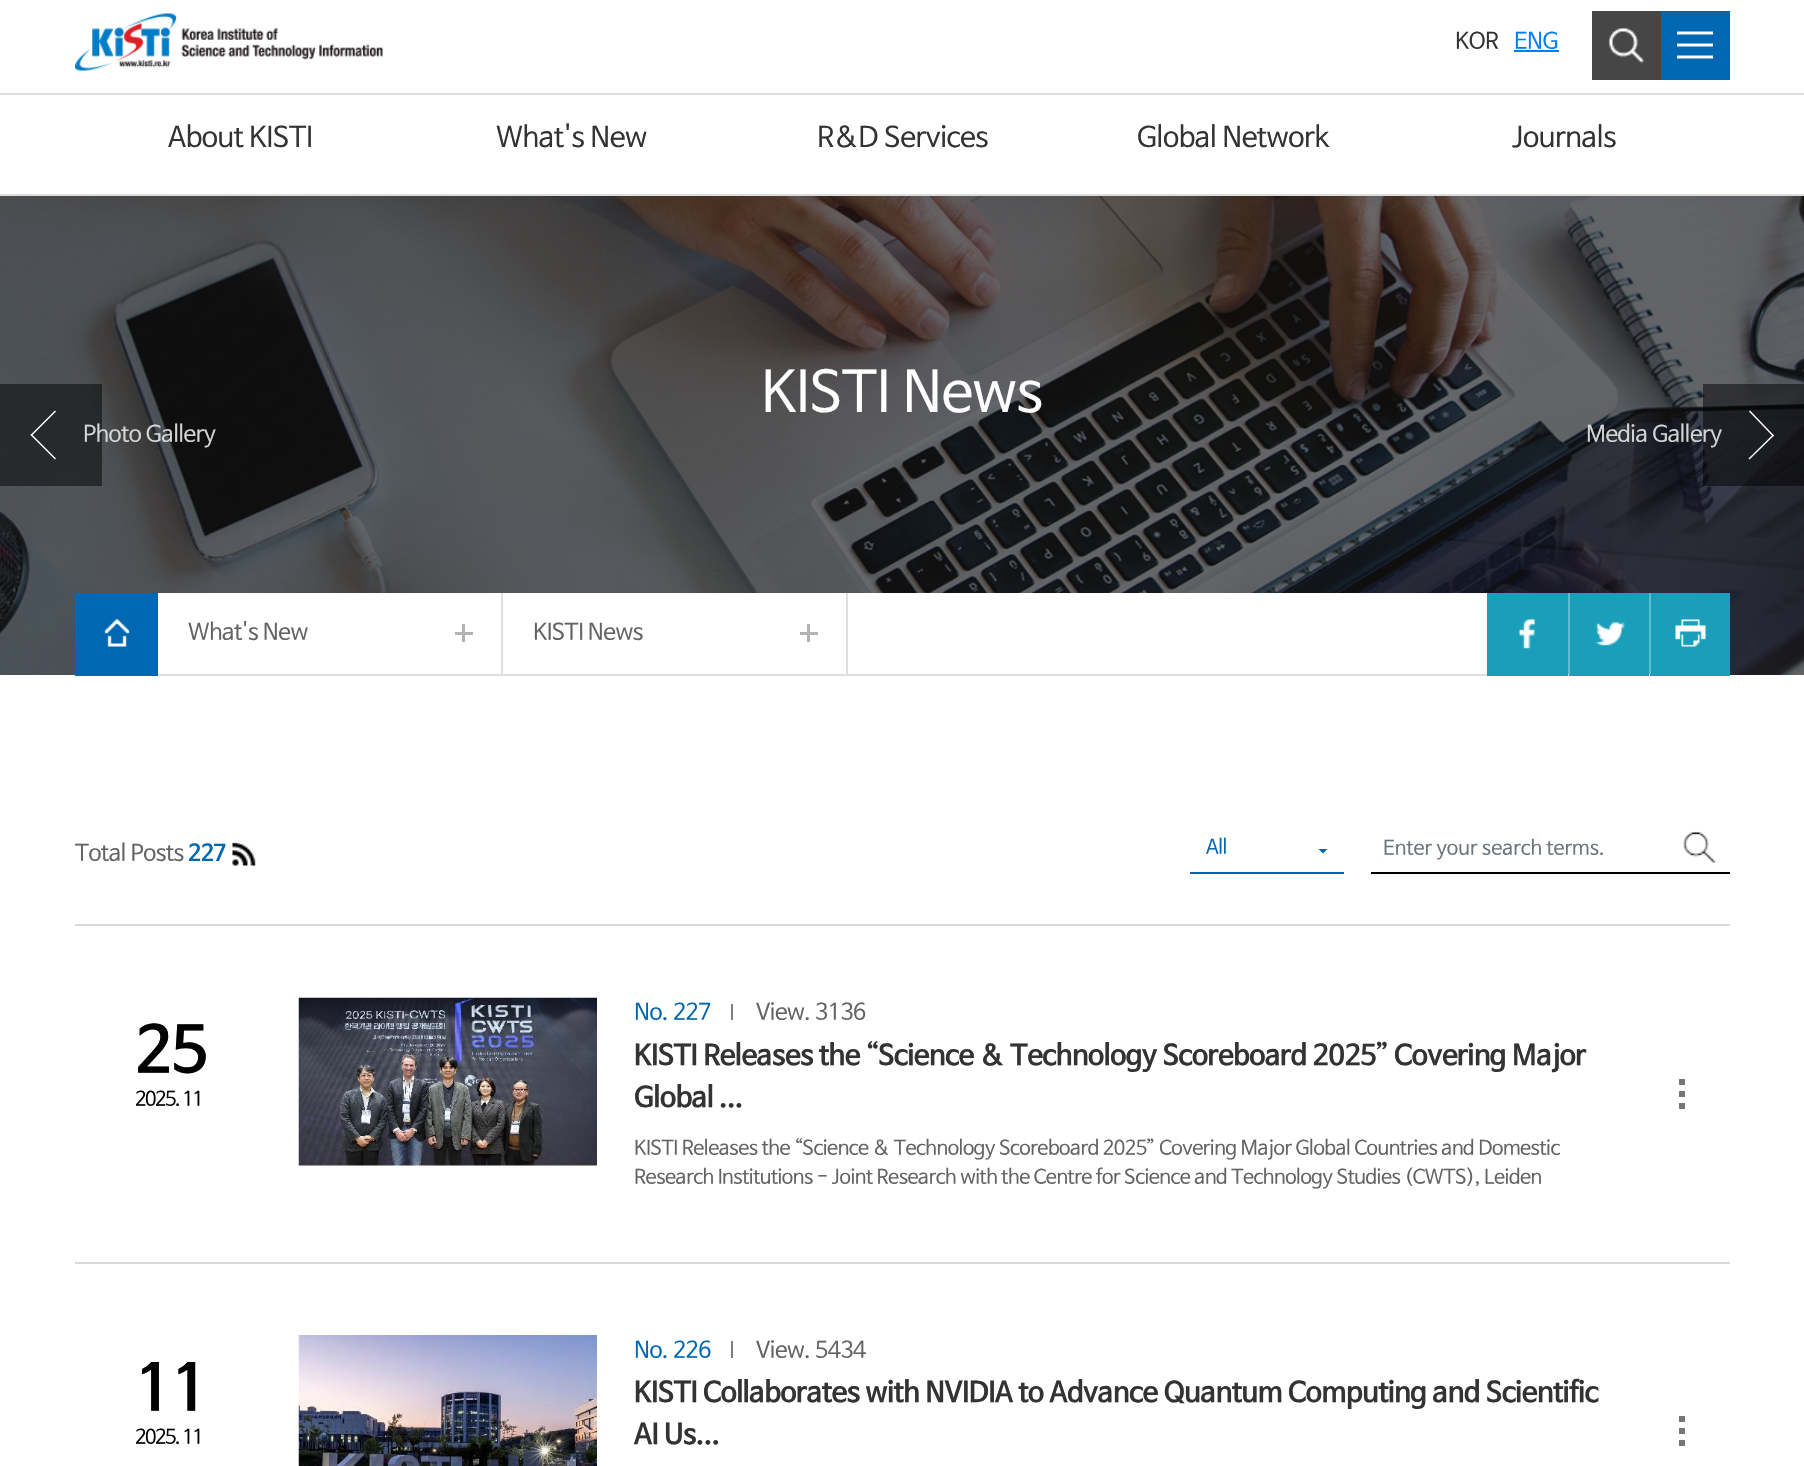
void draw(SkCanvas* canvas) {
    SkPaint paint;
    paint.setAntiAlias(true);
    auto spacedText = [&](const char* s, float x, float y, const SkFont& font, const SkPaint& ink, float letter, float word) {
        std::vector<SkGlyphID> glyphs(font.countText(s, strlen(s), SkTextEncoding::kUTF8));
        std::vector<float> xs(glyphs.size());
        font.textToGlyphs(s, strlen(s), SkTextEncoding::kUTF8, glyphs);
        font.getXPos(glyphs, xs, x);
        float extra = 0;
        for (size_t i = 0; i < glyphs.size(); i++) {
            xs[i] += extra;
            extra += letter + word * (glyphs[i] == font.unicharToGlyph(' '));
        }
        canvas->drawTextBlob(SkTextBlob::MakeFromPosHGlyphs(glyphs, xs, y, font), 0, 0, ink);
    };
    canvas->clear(0xFFFFFFFF);
    paint.setColor(0xFFDDDDDD);
    canvas->drawRect(SkRect::MakeXYWH(0, 194, 1804, 2), paint);
    canvas->drawImageRect(SkImages::DeferredFromEncodedData(SkData::MakeFromFileName("img1.png")), SkRect::MakeXYWH(75, 13, 308, 58), SkSamplingOptions());
    SkFont font1(fontMgr->matchFamilyStyle("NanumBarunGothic", SkFontStyle::Normal()), 22.5f);
    font1.setSubpixel(true);
    paint.setColor(0xFF333333);
    spacedText("KOR", 1455, 48, font1, paint, -0.45f, 0);
    paint.setColor(0xFF007EF9);
    spacedText("ENG", 1514, 48, font1, paint, -0.45f, 0);
    canvas->drawRect(SkRect::MakeXYWH(1514, 50, 45, 2), paint);
    paint.setColor(0xFF464646);
    canvas->drawRect(SkRect::MakeXYWH(1592, 11, 69, 69), paint);
    canvas->drawImageRect(SkImages::DeferredFromEncodedData(SkData::MakeFromFileName("img2.png")), SkRect::MakeXYWH(1608, 27, 37, 37), SkSamplingOptions());
    paint.setColor(0xFF0067B3);
    canvas->drawRect(SkRect::MakeXYWH(1661, 11, 69, 69), paint);
    canvas->drawImageRect(SkImages::DeferredFromEncodedData(SkData::MakeFromFileName("img3.png")), SkRect::MakeXYWH(1677, 31, 36, 28), SkSamplingOptions());
    paint.setColor(0xFFDDDDDD);
    canvas->drawRect(SkRect::MakeXYWH(0, 93, 1804, 2), paint);
    SkFont font2(fontMgr->matchFamilyStyle("NanumBarunGothic", SkFontStyle::Normal()), 28.1f);
    font2.setSubpixel(true);
    paint.setColor(0xFF333333);
    spacedText("About KISTI", 168, 146, font2, paint, -0.45f, 0);
    spacedText("What's New", 496, 146, font2, paint, -0.45f, 0);
    spacedText("R&D Services", 817, 146, font2, paint, -0.45f, 0);
    spacedText("Global Network", 1137, 146, font2, paint, -0.45f, 0);
    spacedText("Journals", 1512, 146, font2, paint, -0.45f, 0);
    canvas->drawImageRect(SkImages::DeferredFromEncodedData(SkData::MakeFromFileName("img4.png")), SkRect::MakeXYWH(0, 196, 1804, 479), SkSamplingOptions());
    SkFont font3(fontMgr->matchFamilyStyle("NanumBarunGothic", SkFontStyle::Normal()), 56.25f);
    font3.setSubpixel(true);
    paint.setColor(0xFFFFFFFF);
    spacedText("KISTI News", 761, 410, font3, paint, -0.45f, 0);
    paint.setColor(0x80000000);
    canvas->drawRect(SkRect::MakeXYWH(0, 384, 102, 102), paint);
    paint.setColor(0xFFFFFFFF);
    canvas->drawPath(SkPathBuilder().moveTo(30.5f, 435).lineTo(55, 410.5f).lineTo(56, 411.5f).lineTo(31.5f, 436).close().detach(), paint);
    canvas->drawPath(SkPathBuilder().moveTo(30.5f, 435).lineTo(31.5f, 434).lineTo(56, 458.5f).lineTo(55, 459.5f).close().detach(), paint);
    paint.setColor(0xFFD4D5D5);
    spacedText("Photo Gallery", 83, 441, font1, paint, -0.45f, 0);
    paint.setColor(0x80000000);
    canvas->drawRect(SkRect::MakeXYWH(1703, 384, 101, 102), paint);
    paint.setColor(0xFFD4D5D5);
    spacedText("Media Gallery", 1586, 441, font1, paint, -0.45f, 0);
    paint.setColor(0xFFFFFFFF);
    canvas->drawPath(SkPathBuilder().moveTo(1774, 435.5f).lineTo(1749.5f, 459.5f).lineTo(1748.5f, 458.5f).lineTo(1773, 434.5f).close().detach(), paint);
    canvas->drawPath(SkPathBuilder().moveTo(1774, 435.5f).lineTo(1773, 436.5f).lineTo(1749, 411.5f).lineTo(1750, 410.5f).close().detach(), paint);
    canvas->drawRect(SkRect::MakeXYWH(158, 593, 1329, 81), paint);
    paint.setColor(0xFFE0E0E0);
    canvas->drawRect(SkRect::MakeXYWH(158, 674, 1492, 2), paint);
    paint.setColor(0xFF0067B3);
    canvas->drawRect(SkRect::MakeXYWH(75, 593, 83, 83), paint);
    canvas->drawImageRect(SkImages::DeferredFromEncodedData(SkData::MakeFromFileName("img5.png")), SkRect::MakeXYWH(104, 619, 26, 28), SkSamplingOptions());
    paint.setColor(0xFFE0E0E0);
    canvas->drawRect(SkRect::MakeXYWH(501, 593, 2, 82), paint);
    paint.setColor(0xFF636363);
    spacedText("What's New", 188, 639, font1, paint, -0.45f, 0);
    paint.setColor(0xFFB3B3B3);
    canvas->drawRect(SkRect::MakeXYWH(455, 632, 18, 3), paint);
    canvas->drawRect(SkRect::MakeXYWH(462, 624, 3, 18), paint);
    paint.setColor(0xFFE0E0E0);
    canvas->drawRect(SkRect::MakeXYWH(846, 593, 2, 82), paint);
    paint.setColor(0xFF636363);
    spacedText("KISTI News", 533, 639, font1, paint, -0.45f, 0);
    paint.setColor(0xFFB3B3B3);
    canvas->drawRect(SkRect::MakeXYWH(800, 632, 18, 3), paint);
    canvas->drawRect(SkRect::MakeXYWH(807, 624, 3, 18), paint);
    paint.setColor(0xFF1A9FBB);
    canvas->drawRect(SkRect::MakeXYWH(1487, 593, 81, 83), paint);
    canvas->drawImageRect(SkImages::DeferredFromEncodedData(SkData::MakeFromFileName("img6.png")), SkRect::MakeXYWH(1519, 619, 16, 30), SkSamplingOptions());
    canvas->drawRect(SkRect::MakeXYWH(1570, 593, 79, 81), paint);
    paint.setColor(0xFF5FBCCF);
    canvas->drawRect(SkRect::MakeXYWH(1568, 593, 2, 81), paint);
    canvas->drawImageRect(SkImages::DeferredFromEncodedData(SkData::MakeFromFileName("img7.png")), SkRect::MakeXYWH(1595, 622, 30, 24), SkSamplingOptions());
    paint.setColor(0xFF1A9FBB);
    canvas->drawRect(SkRect::MakeXYWH(1569, 674, 80, 2), paint);
    canvas->drawRect(SkRect::MakeXYWH(1651, 593, 79, 81), paint);
    paint.setColor(0xFF5FBCCF);
    canvas->drawRect(SkRect::MakeXYWH(1649, 593, 2, 81), paint);
    canvas->drawImageRect(SkImages::DeferredFromEncodedData(SkData::MakeFromFileName("img8.png")), SkRect::MakeXYWH(1675, 619, 31, 28), SkSamplingOptions());
    paint.setColor(0xFF1A9FBB);
    canvas->drawRect(SkRect::MakeXYWH(1650, 674, 80, 2), paint);
    paint.setColor(0xFF636363);
    spacedText("Total Posts", 75, 860, font1, paint, -0.45f, 0);
    SkFont font4(fontMgr->matchFamilyStyle("NanumBarunGothic", SkFontStyle::Bold()), 22.5f);
    font4.setSubpixel(true);
    paint.setColor(0xFF0067B3);
    spacedText("227", 188, 860, font4, paint, -0.45f, 0);
    canvas->drawImageRect(SkImages::DeferredFromEncodedData(SkData::MakeFromFileName("img9.png")), SkRect::MakeXYWH(232, 842, 24, 24), SkSamplingOptions());
    canvas->drawRect(SkRect::MakeXYWH(1190, 872, 154, 2), paint);
    SkFont font5(fontMgr->matchFamilyStyle("NanumBarunGothic", SkFontStyle::Normal()), 19.7f);
    font5.setSubpixel(true);
    spacedText("All", 1206, 853, font5, paint, -0.45f, 0);
    canvas->drawPath(SkPathBuilder().moveTo(1318.5f, 849).lineTo(1327.5f, 849).lineTo(1323, 853.5f).close().detach(), paint);
    paint.setColor(0xFF000000);
    canvas->drawRect(SkRect::MakeXYWH(1371, 872, 359, 2), paint);
    canvas->drawImageRect(SkImages::DeferredFromEncodedData(SkData::MakeFromFileName("img10.png")), SkRect::MakeXYWH(1682, 831, 35, 32), SkSamplingOptions());
    paint.setColor(0xFF6C757D);
    canvas->drawString("Enter your search terms.", 1383, 854, font5, paint);
    paint.setColor(0xFFD9D9D9);
    canvas->drawRect(SkRect::MakeXYWH(75, 924, 1655, 2), paint);
    canvas->drawRect(SkRect::MakeXYWH(75, 1262, 1655, 2), paint);
    SkFont font6(fontMgr->matchFamilyStyle("NanumBarunGothic", SkFontStyle::Bold()), 63);
    font6.setSubpixel(true);
    paint.setColor(0xFF000000);
    spacedText("25", 135, 1070, font6, paint, -0.45f, 0);
    spacedText("2025. 11", 135, 1105, font5, paint, -1.5f, 0);
    canvas->drawImageRect(SkImages::DeferredFromEncodedData(SkData::MakeFromFileName("img11.png")), SkRect::MakeXYWH(298, 997, 299, 169), SkSamplingOptions());
    paint.setColor(0xFF0067B3);
    spacedText("No. 227", 634, 1019, font1, paint, -0.45f, 0);
    paint.setColor(0xFF808080);
    canvas->drawRect(SkRect::MakeXYWH(731, 1004, 2, 16), paint);
    paint.setColor(0xFF636363);
    spacedText("View. 3136", 756, 1019, font1, paint, -0.45f, 0);
    SkFont font7(fontMgr->matchFamilyStyle("NanumBarunGothic", SkFontStyle::Bold()), 28.1f);
    font7.setSubpixel(true);
    paint.setColor(0xFF333333);
    spacedText("KISTI Releases the “Science & Technology Scoreboard 2025” Covering Major", 634, 1064, font7, paint, -0.45f, 0);
    spacedText("Global ...", 634, 1106, font7, paint, -0.45f, 0);
    paint.setColor(0xFF636363);
    spacedText("KISTI Releases the “Science & Technology Scoreboard 2025” Covering Major Global Countries and Domestic", 634, 1154, font5, paint, -0.45f, 0);
    spacedText("Research Institutions - Joint Research with the Centre for Science and Technology Studies (CWTS), Leiden", 634, 1183, font5, paint, -0.45f, 0);
    paint.setColor(0xFF777777);
    canvas->drawRect(SkRect::MakeXYWH(1679, 1079, 6, 6), paint);
    canvas->drawRect(SkRect::MakeXYWH(1679, 1091, 6, 6), paint);
    canvas->drawRect(SkRect::MakeXYWH(1679, 1103, 6, 6), paint);
    paint.setColor(0xFF000000);
    spacedText("11", 135, 1408, font6, paint, -0.45f, 0);
    spacedText("2025. 11", 135, 1443, font5, paint, -1.5f, 0);
    canvas->drawImageRect(SkImages::DeferredFromEncodedData(SkData::MakeFromFileName("img12.png")), SkRect::MakeXYWH(298, 1335, 299, 131), SkSamplingOptions());
    paint.setColor(0xFF0067B3);
    spacedText("No. 226", 634, 1357, font1, paint, -0.45f, 0);
    paint.setColor(0xFF808080);
    canvas->drawRect(SkRect::MakeXYWH(731, 1341, 2, 17), paint);
    paint.setColor(0xFF636363);
    spacedText("View. 5434", 756, 1357, font1, paint, -0.45f, 0);
    paint.setColor(0xFF333333);
    spacedText("KISTI Collaborates with NVIDIA to Advance Quantum Computing and Scientific", 634, 1401, font7, paint, -0.45f, 0);
    spacedText("AI Us...", 634, 1443, font7, paint, -0.45f, 0);
    paint.setColor(0xFF777777);
    canvas->drawRect(SkRect::MakeXYWH(1679, 1416, 6, 6), paint);
    canvas->drawRect(SkRect::MakeXYWH(1679, 1428, 6, 6), paint);
    canvas->drawRect(SkRect::MakeXYWH(1679, 1440, 6, 6), paint);
}
